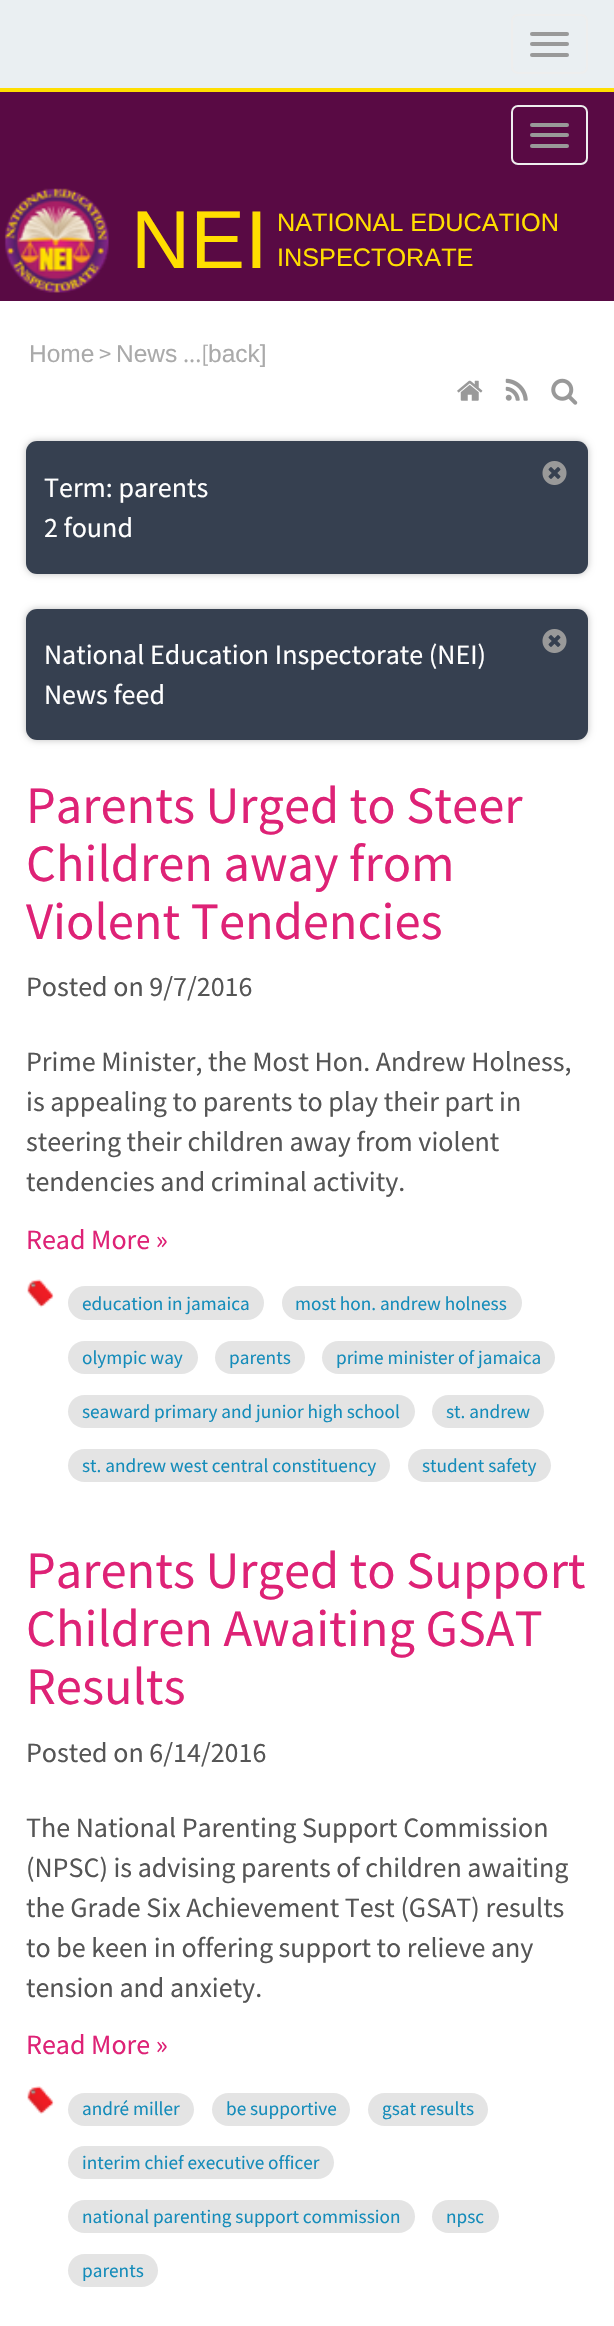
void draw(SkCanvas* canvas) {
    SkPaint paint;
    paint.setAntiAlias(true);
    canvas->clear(0xFF590A44);
    paint.setColor(0xFFEAEFF2);
    canvas->drawRect(SkRect::MakeXYWH(0, 0, 614, 88), paint);
    paint.setStyle(SkPaint::kStroke_Style);
    paint.setStrokeWidth(2);
    paint.setColor(0xFFEEEEEE);
    canvas->drawRoundRect(SkRect::MakeXYWH(512, 15, 75, 58), 6, 6, paint);
    paint.setStyle(SkPaint::kFill_Style);
    paint.setColor(0xFF999999);
    canvas->drawRoundRect(SkRect::MakeXYWH(530, 32, 39, 4), 2, 2, paint);
    canvas->drawRoundRect(SkRect::MakeXYWH(530, 42, 39, 4), 2, 2, paint);
    canvas->drawRoundRect(SkRect::MakeXYWH(530, 53, 39, 4), 2, 2, paint);
    paint.setColor(0xFFFFDE00);
    canvas->drawRect(SkRect::MakeXYWH(0, 88, 614, 4), paint);
    paint.setStyle(SkPaint::kStroke_Style);
    paint.setColor(0xFFEEEEEE);
    canvas->drawRoundRect(SkRect::MakeXYWH(512, 106, 75, 58), 6, 6, paint);
    paint.setStyle(SkPaint::kFill_Style);
    paint.setColor(0xFF999999);
    canvas->drawRoundRect(SkRect::MakeXYWH(530, 123, 39, 4), 2, 2, paint);
    canvas->drawRoundRect(SkRect::MakeXYWH(530, 133, 39, 4), 2, 2, paint);
    canvas->drawRoundRect(SkRect::MakeXYWH(530, 144, 39, 4), 2, 2, paint);
    canvas->drawImageRect(SkImages::DeferredFromEncodedData(SkData::MakeFromFileName("img1.png")), SkRect::MakeXYWH(4, 188, 105, 105), SkSamplingOptions());
    SkFont font1(fontMgr->matchFamilyStyle("Liberation Sans", SkFontStyle::Normal()), 82);
    font1.setSubpixel(true);
    paint.setColor(0xFFFFDE00);
    canvas->drawString("NEI", 131, 268, font1, paint);
    SkFont font2(fontMgr->matchFamilyStyle("Liberation Sans", SkFontStyle::Normal()), 25.25f);
    font2.setSubpixel(true);
    canvas->drawString("NATIONAL EDUCATION", 277, 231, font2, paint);
    canvas->drawString("INSPECTORATE", 277, 266, font2, paint);
    paint.setColor(0xFFFFFFFF);
    canvas->drawRect(SkRect::MakeXYWH(0, 301, 614, 2025), paint);
    SkFont font3(fontMgr->matchFamilyStyle("Liberation Sans", SkFontStyle::Normal()), 24.5f);
    font3.setSubpixel(true);
    paint.setColor(0xFFAAAAAA);
    canvas->drawString("Home", 29, 362, font3, paint);
    SkFont font4(fontMgr->matchFamilyStyle("Source Sans Pro", SkFontStyle::Normal()), 24.5f);
    font4.setSubpixel(true);
    canvas->drawString(">", 99, 362, font4, paint);
    canvas->drawString("News", 116, 362, font3, paint);
    canvas->drawString("...[", 183, 362, font4, paint);
    canvas->drawString("back]", 208, 362, font3, paint);
    canvas->drawImageRect(SkImages::DeferredFromEncodedData(SkData::MakeFromFileName("img2.png")), SkRect::MakeXYWH(457, 380, 26, 21), SkSamplingOptions());
    canvas->drawImageRect(SkImages::DeferredFromEncodedData(SkData::MakeFromFileName("img3.png")), SkRect::MakeXYWH(505, 378, 23, 23), SkSamplingOptions());
    canvas->drawImageRect(SkImages::DeferredFromEncodedData(SkData::MakeFromFileName("img4.png")), SkRect::MakeXYWH(551, 378, 27, 27), SkSamplingOptions());
    paint.setColor(0x40000000);
    paint.setMaskFilter(SkMaskFilter::MakeBlur(kNormal_SkBlurStyle, 3.5f));
    canvas->drawRoundRect(SkRect::MakeXYWH(26, 441, 562, 133), 11, 11, paint);
    paint.setMaskFilter(nullptr);
    paint.setColor(0xFF364050);
    canvas->drawRoundRect(SkRect::MakeXYWH(26, 441, 562, 133), 11, 11, paint);
    canvas->drawImageRect(SkImages::DeferredFromEncodedData(SkData::MakeFromFileName("img5.png")), SkRect::MakeXYWH(542, 461, 25, 24), SkSamplingOptions());
    SkFont font5(fontMgr->matchFamilyStyle("Source Sans Pro", SkFontStyle::Normal()), 28);
    font5.setSubpixel(true);
    paint.setColor(0xFFFFFFFF);
    canvas->drawString("Term: parents", 44, 497, font5, paint);
    canvas->drawString("2 found", 44, 537, font5, paint);
    paint.setColor(0x40000000);
    paint.setMaskFilter(SkMaskFilter::MakeBlur(kNormal_SkBlurStyle, 3.5f));
    canvas->drawRoundRect(SkRect::MakeXYWH(26, 609, 562, 131), 11, 11, paint);
    paint.setMaskFilter(nullptr);
    paint.setColor(0xFF364050);
    canvas->drawRoundRect(SkRect::MakeXYWH(26, 609, 562, 131), 11, 11, paint);
    paint.setColor(0xFFFFFFFF);
    canvas->drawString("National Education Inspectorate (NEI)", 44, 664, font5, paint);
    canvas->drawImageRect(SkImages::DeferredFromEncodedData(SkData::MakeFromFileName("img5.png")), SkRect::MakeXYWH(542, 629, 25, 24), SkSamplingOptions());
    canvas->drawString("News feed", 44, 704, font5, paint);
    SkFont font6(fontMgr->matchFamilyStyle("Source Sans Pro", SkFontStyle::Normal()), 52.5f);
    font6.setSubpixel(true);
    paint.setColor(0xFFDE2276);
    canvas->drawString("Parents Urged to Steer", 26, 823, font6, paint);
    canvas->drawString("Children away from", 26, 881, font6, paint);
    canvas->drawString("Violent Tendencies", 26, 939, font6, paint);
    paint.setColor(0xFF555555);
    canvas->drawString("Posted on 9/7/2016", 26, 996, font5, paint);
    canvas->drawString("Prime Minister, the Most Hon. Andrew Holness,", 26, 1071, font5, paint);
    canvas->drawString("is appealing to parents to play their part in", 26, 1111, font5, paint);
    canvas->drawString("steering their children away from violent", 26, 1151, font5, paint);
    canvas->drawString("tendencies and criminal activity.", 26, 1191, font5, paint);
    paint.setColor(0xFFDE2276);
    canvas->drawString("Read More »", 26, 1249, font5, paint);
    canvas->drawImageRect(SkImages::DeferredFromEncodedData(SkData::MakeFromFileName("img6.png")), SkRect::MakeXYWH(27, 1279, 27, 29), SkSamplingOptions());
    paint.setColor(0xFFE4E4E4);
    canvas->drawRoundRect(SkRect::MakeXYWH(68, 1286, 196, 34), 17, 17, paint);
    SkFont font7(fontMgr->matchFamilyStyle("Source Sans Pro", SkFontStyle::Normal()), 19.25f);
    font7.setSubpixel(true);
    paint.setColor(0xFF158CBA);
    canvas->drawString("education in jamaica", 82, 1310, font7, paint);
    paint.setColor(0xFFE4E4E4);
    canvas->drawRoundRect(SkRect::MakeXYWH(282, 1286, 240, 34), 17, 17, paint);
    paint.setColor(0xFF158CBA);
    canvas->drawString("most hon. andrew holness", 295, 1310, font7, paint);
    paint.setColor(0xFFE4E4E4);
    canvas->drawRoundRect(SkRect::MakeXYWH(68, 1341, 130, 33), 16.5f, 16.5f, paint);
    paint.setColor(0xFF158CBA);
    canvas->drawString("olympic way", 82, 1364, font7, paint);
    paint.setColor(0xFFE4E4E4);
    canvas->drawRoundRect(SkRect::MakeXYWH(215, 1341, 90, 33), 16.5f, 16.5f, paint);
    paint.setColor(0xFF158CBA);
    canvas->drawString("parents", 229, 1364, font7, paint);
    paint.setColor(0xFFE4E4E4);
    canvas->drawRoundRect(SkRect::MakeXYWH(322, 1341, 233, 33), 16.5f, 16.5f, paint);
    paint.setColor(0xFF158CBA);
    canvas->drawString("prime minister of jamaica", 336, 1364, font7, paint);
    paint.setColor(0xFFE4E4E4);
    canvas->drawRoundRect(SkRect::MakeXYWH(68, 1395, 347, 33), 16.5f, 16.5f, paint);
    paint.setColor(0xFF158CBA);
    canvas->drawString("seaward primary and junior high school", 82, 1418, font7, paint);
    paint.setColor(0xFFE4E4E4);
    canvas->drawRoundRect(SkRect::MakeXYWH(432, 1395, 112, 33), 16.5f, 16.5f, paint);
    paint.setColor(0xFF158CBA);
    canvas->drawString("st. andrew", 446, 1418, font7, paint);
    paint.setColor(0xFFE4E4E4);
    canvas->drawRoundRect(SkRect::MakeXYWH(68, 1449, 322, 33), 16.5f, 16.5f, paint);
    paint.setColor(0xFF158CBA);
    canvas->drawString("st. andrew west central constituency", 82, 1472, font7, paint);
    paint.setColor(0xFFE4E4E4);
    canvas->drawRoundRect(SkRect::MakeXYWH(408, 1449, 143, 33), 16.5f, 16.5f, paint);
    paint.setColor(0xFF158CBA);
    canvas->drawString("student safety", 422, 1472, font7, paint);
    paint.setColor(0xFFDE2276);
    canvas->drawString("Parents Urged to Support", 26, 1588, font6, paint);
    canvas->drawString("Children Awaiting GSAT", 26, 1646, font6, paint);
    canvas->drawString("Results", 26, 1704, font6, paint);
    paint.setColor(0xFF555555);
    canvas->drawString("Posted on 6/14/2016", 26, 1762, font5, paint);
    canvas->drawString("The National Parenting Support Commission", 26, 1837, font5, paint);
    canvas->drawString("(NPSC) is advising parents of children awaiting", 26, 1877, font5, paint);
    canvas->drawString("the Grade Six Achievement Test (GSAT) results", 26, 1917, font5, paint);
    canvas->drawString("to be keen in offering support to relieve any", 26, 1957, font5, paint);
    canvas->drawString("tension and anxiety.", 26, 1997, font5, paint);
    paint.setColor(0xFFDE2276);
    canvas->drawString("Read More »", 26, 2054, font5, paint);
    canvas->drawImageRect(SkImages::DeferredFromEncodedData(SkData::MakeFromFileName("img7.png")), SkRect::MakeXYWH(27, 2086, 28, 28), SkSamplingOptions());
    paint.setColor(0xFFE4E4E4);
    canvas->drawRoundRect(SkRect::MakeXYWH(68, 2093, 126, 33), 16.5f, 16.5f, paint);
    paint.setColor(0xFF158CBA);
    canvas->drawString("andré miller", 82, 2115, font7, paint);
    paint.setColor(0xFFE4E4E4);
    canvas->drawRoundRect(SkRect::MakeXYWH(212, 2093, 138, 33), 16.5f, 16.5f, paint);
    paint.setColor(0xFF158CBA);
    canvas->drawString("be supportive", 226, 2115, font7, paint);
    paint.setColor(0xFFE4E4E4);
    canvas->drawRoundRect(SkRect::MakeXYWH(368, 2093, 120, 33), 16.5f, 16.5f, paint);
    paint.setColor(0xFF158CBA);
    canvas->drawString("gsat results", 382, 2115, font7, paint);
    paint.setColor(0xFFE4E4E4);
    canvas->drawRoundRect(SkRect::MakeXYWH(68, 2146, 266, 33), 16.5f, 16.5f, paint);
    paint.setColor(0xFF158CBA);
    canvas->drawString("interim chief executive officer", 82, 2169, font7, paint);
    paint.setColor(0xFFE4E4E4);
    canvas->drawRoundRect(SkRect::MakeXYWH(68, 2200, 347, 33), 16.5f, 16.5f, paint);
    paint.setColor(0xFF158CBA);
    canvas->drawString("national parenting support commission", 82, 2223, font7, paint);
    paint.setColor(0xFFE4E4E4);
    canvas->drawRoundRect(SkRect::MakeXYWH(432, 2200, 67, 33), 16.5f, 16.5f, paint);
    paint.setColor(0xFF158CBA);
    canvas->drawString("npsc", 446, 2223, font7, paint);
    paint.setColor(0xFFE4E4E4);
    canvas->drawRoundRect(SkRect::MakeXYWH(68, 2254, 90, 33), 16.5f, 16.5f, paint);
    paint.setColor(0xFF158CBA);
    canvas->drawString("parents", 82, 2277, font7, paint);
}
